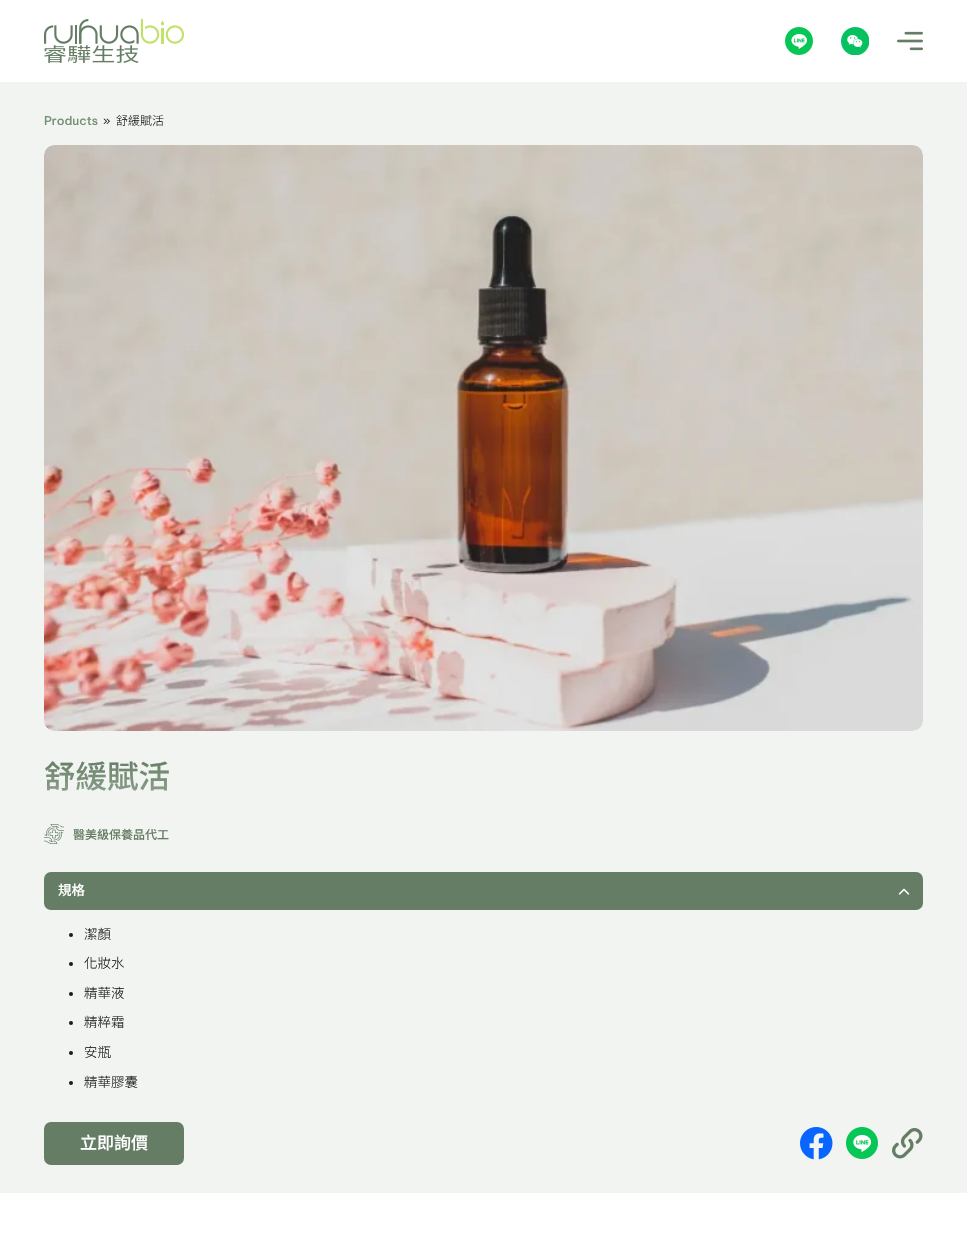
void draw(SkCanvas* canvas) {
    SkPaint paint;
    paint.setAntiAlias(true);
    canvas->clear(0xFFFFFFFF);
    canvas->drawImageRect(SkImages::DeferredFromEncodedData(SkData::MakeFromFileName("img1.png")), SkRect::MakeXYWH(44, 19, 140, 44), SkSamplingOptions());
    canvas->drawImageRect(SkImages::DeferredFromEncodedData(SkData::MakeFromFileName("img2.png")), SkRect::MakeXYWH(785, 27, 28, 28), SkSamplingOptions());
    canvas->drawImageRect(SkImages::DeferredFromEncodedData(SkData::MakeFromFileName("img3.png")), SkRect::MakeXYWH(841, 27, 28, 28), SkSamplingOptions());
    canvas->drawImageRect(SkImages::DeferredFromEncodedData(SkData::MakeFromFileName("img4.png")), SkRect::MakeXYWH(897, 31, 26, 20), SkSamplingOptions());
    paint.setColor(0xFFF1F4F1);
    canvas->drawRect(SkRect::MakeXYWH(0, 82, 967, 1111), paint);
    SkFont font1(fontMgr->matchFamilyStyle("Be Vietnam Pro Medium", SkFontStyle(500, SkFontStyle::kNormal_Width, SkFontStyle::kUpright_Slant)), 12);
    font1.setSubpixel(true);
    paint.setColor(0xFF749074);
    canvas->drawString("Products", 44, 125, font1, paint);
    SkFont font2(fontMgr->matchFamilyStyle("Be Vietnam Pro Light", SkFontStyle(300, SkFontStyle::kNormal_Width, SkFontStyle::kUpright_Slant)), 12);
    font2.setSubpixel(true);
    paint.setColor(0xFF171C17);
    canvas->drawString("»", 103, 125, font2, paint);
    SkFont font3(fontMgr->matchFamilyStyle("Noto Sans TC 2", SkFontStyle(100, SkFontStyle::kNormal_Width, SkFontStyle::kUpright_Slant)), 12);
    font3.setSubpixel(true);
    canvas->drawString("舒緩賦活", 116, 125, font3, paint);
    canvas->drawImageRect(SkImages::DeferredFromEncodedData(SkData::MakeFromFileName("img5.png")), SkRect::MakeXYWH(44, 145, 879, 586), SkSamplingOptions());
    SkFont font4(fontMgr->matchFamilyStyle("Noto Sans TC", SkFontStyle(100, SkFontStyle::kNormal_Width, SkFontStyle::kUpright_Slant)), 31.5f);
    font4.setSubpixel(true);
    {
        const SkColor colors[] = {0xFF647D64, 0xFF8EA18E};
        const float stops[] = {0, 1};
        const SkPoint ends[] = {{108, 758}, {108, 796}};
        paint.setShader(SkGradientShader::MakeLinear(ends, colors, stops, 2, SkTileMode::kClamp));
        paint.setAlpha(255);
    }
    canvas->drawString("舒緩賦活", 44, 788, font4, paint);
    canvas->drawImageRect(SkImages::DeferredFromEncodedData(SkData::MakeFromFileName("img6.png")), SkRect::MakeXYWH(44, 824, 20, 20), SkSamplingOptions());
    SkFont font5(fontMgr->matchFamilyStyle("Noto Sans TC", SkFontStyle(100, SkFontStyle::kNormal_Width, SkFontStyle::kUpright_Slant)), 12);
    font5.setSubpixel(true);
    paint.setShader(nullptr);
    paint.setColor(0xFF647D64);
    canvas->drawString("醫美級保養品代工", 73, 839, font5, paint);
    canvas->drawRoundRect(SkRect::MakeXYWH(44, 872, 879, 38), 7, 7, paint);
    SkFont font6(fontMgr->matchFamilyStyle("Noto Sans TC", SkFontStyle(100, SkFontStyle::kNormal_Width, SkFontStyle::kUpright_Slant)), 13.5f);
    font6.setSubpixel(true);
    paint.setColor(0xFFFFFFFF);
    canvas->drawString("規格", 58, 895, font6, paint);
    canvas->drawImageRect(SkImages::DeferredFromEncodedData(SkData::MakeFromFileName("img7.png")), SkRect::MakeXYWH(898, 888, 12, 7), SkSamplingOptions());
    paint.setColor(0xFF171C17);
    canvas->drawCircle(71, 935, 2, paint);
    SkFont font7(fontMgr->matchFamilyStyle("Noto Sans TC 2", SkFontStyle(100, SkFontStyle::kNormal_Width, SkFontStyle::kUpright_Slant)), 13.5f);
    font7.setSubpixel(true);
    canvas->drawString("潔顏", 84, 939, font7, paint);
    canvas->drawCircle(71, 964, 2, paint);
    canvas->drawString("化妝水", 84, 968, font7, paint);
    canvas->drawCircle(71, 994, 2, paint);
    canvas->drawString("精華液", 84, 998, font7, paint);
    canvas->drawCircle(71, 1023, 2, paint);
    canvas->drawString("精粹霜", 84, 1027, font7, paint);
    canvas->drawCircle(71, 1053, 2, paint);
    canvas->drawString("安瓶", 84, 1057, font7, paint);
    canvas->drawCircle(71, 1083, 2, paint);
    canvas->drawString("精華膠囊", 84, 1087, font7, paint);
    paint.setColor(0xFF647D64);
    canvas->drawRoundRect(SkRect::MakeXYWH(44, 1122, 140, 43), 7, 7, paint);
    SkFont font8(fontMgr->matchFamilyStyle("Noto Sans TC", SkFontStyle(100, SkFontStyle::kNormal_Width, SkFontStyle::kUpright_Slant)), 17);
    font8.setSubpixel(true);
    paint.setColor(0xFFFFFFFF);
    canvas->drawString("立即詢價", 80, 1149, font8, paint);
    canvas->drawImageRect(SkImages::DeferredFromEncodedData(SkData::MakeFromFileName("img8.png")), SkRect::MakeXYWH(800, 1127, 33, 33), SkSamplingOptions());
    canvas->drawImageRect(SkImages::DeferredFromEncodedData(SkData::MakeFromFileName("img9.png")), SkRect::MakeXYWH(846, 1127, 32, 32), SkSamplingOptions());
    canvas->drawImageRect(SkImages::DeferredFromEncodedData(SkData::MakeFromFileName("img10.png")), SkRect::MakeXYWH(892, 1128, 31, 31), SkSamplingOptions());
}
